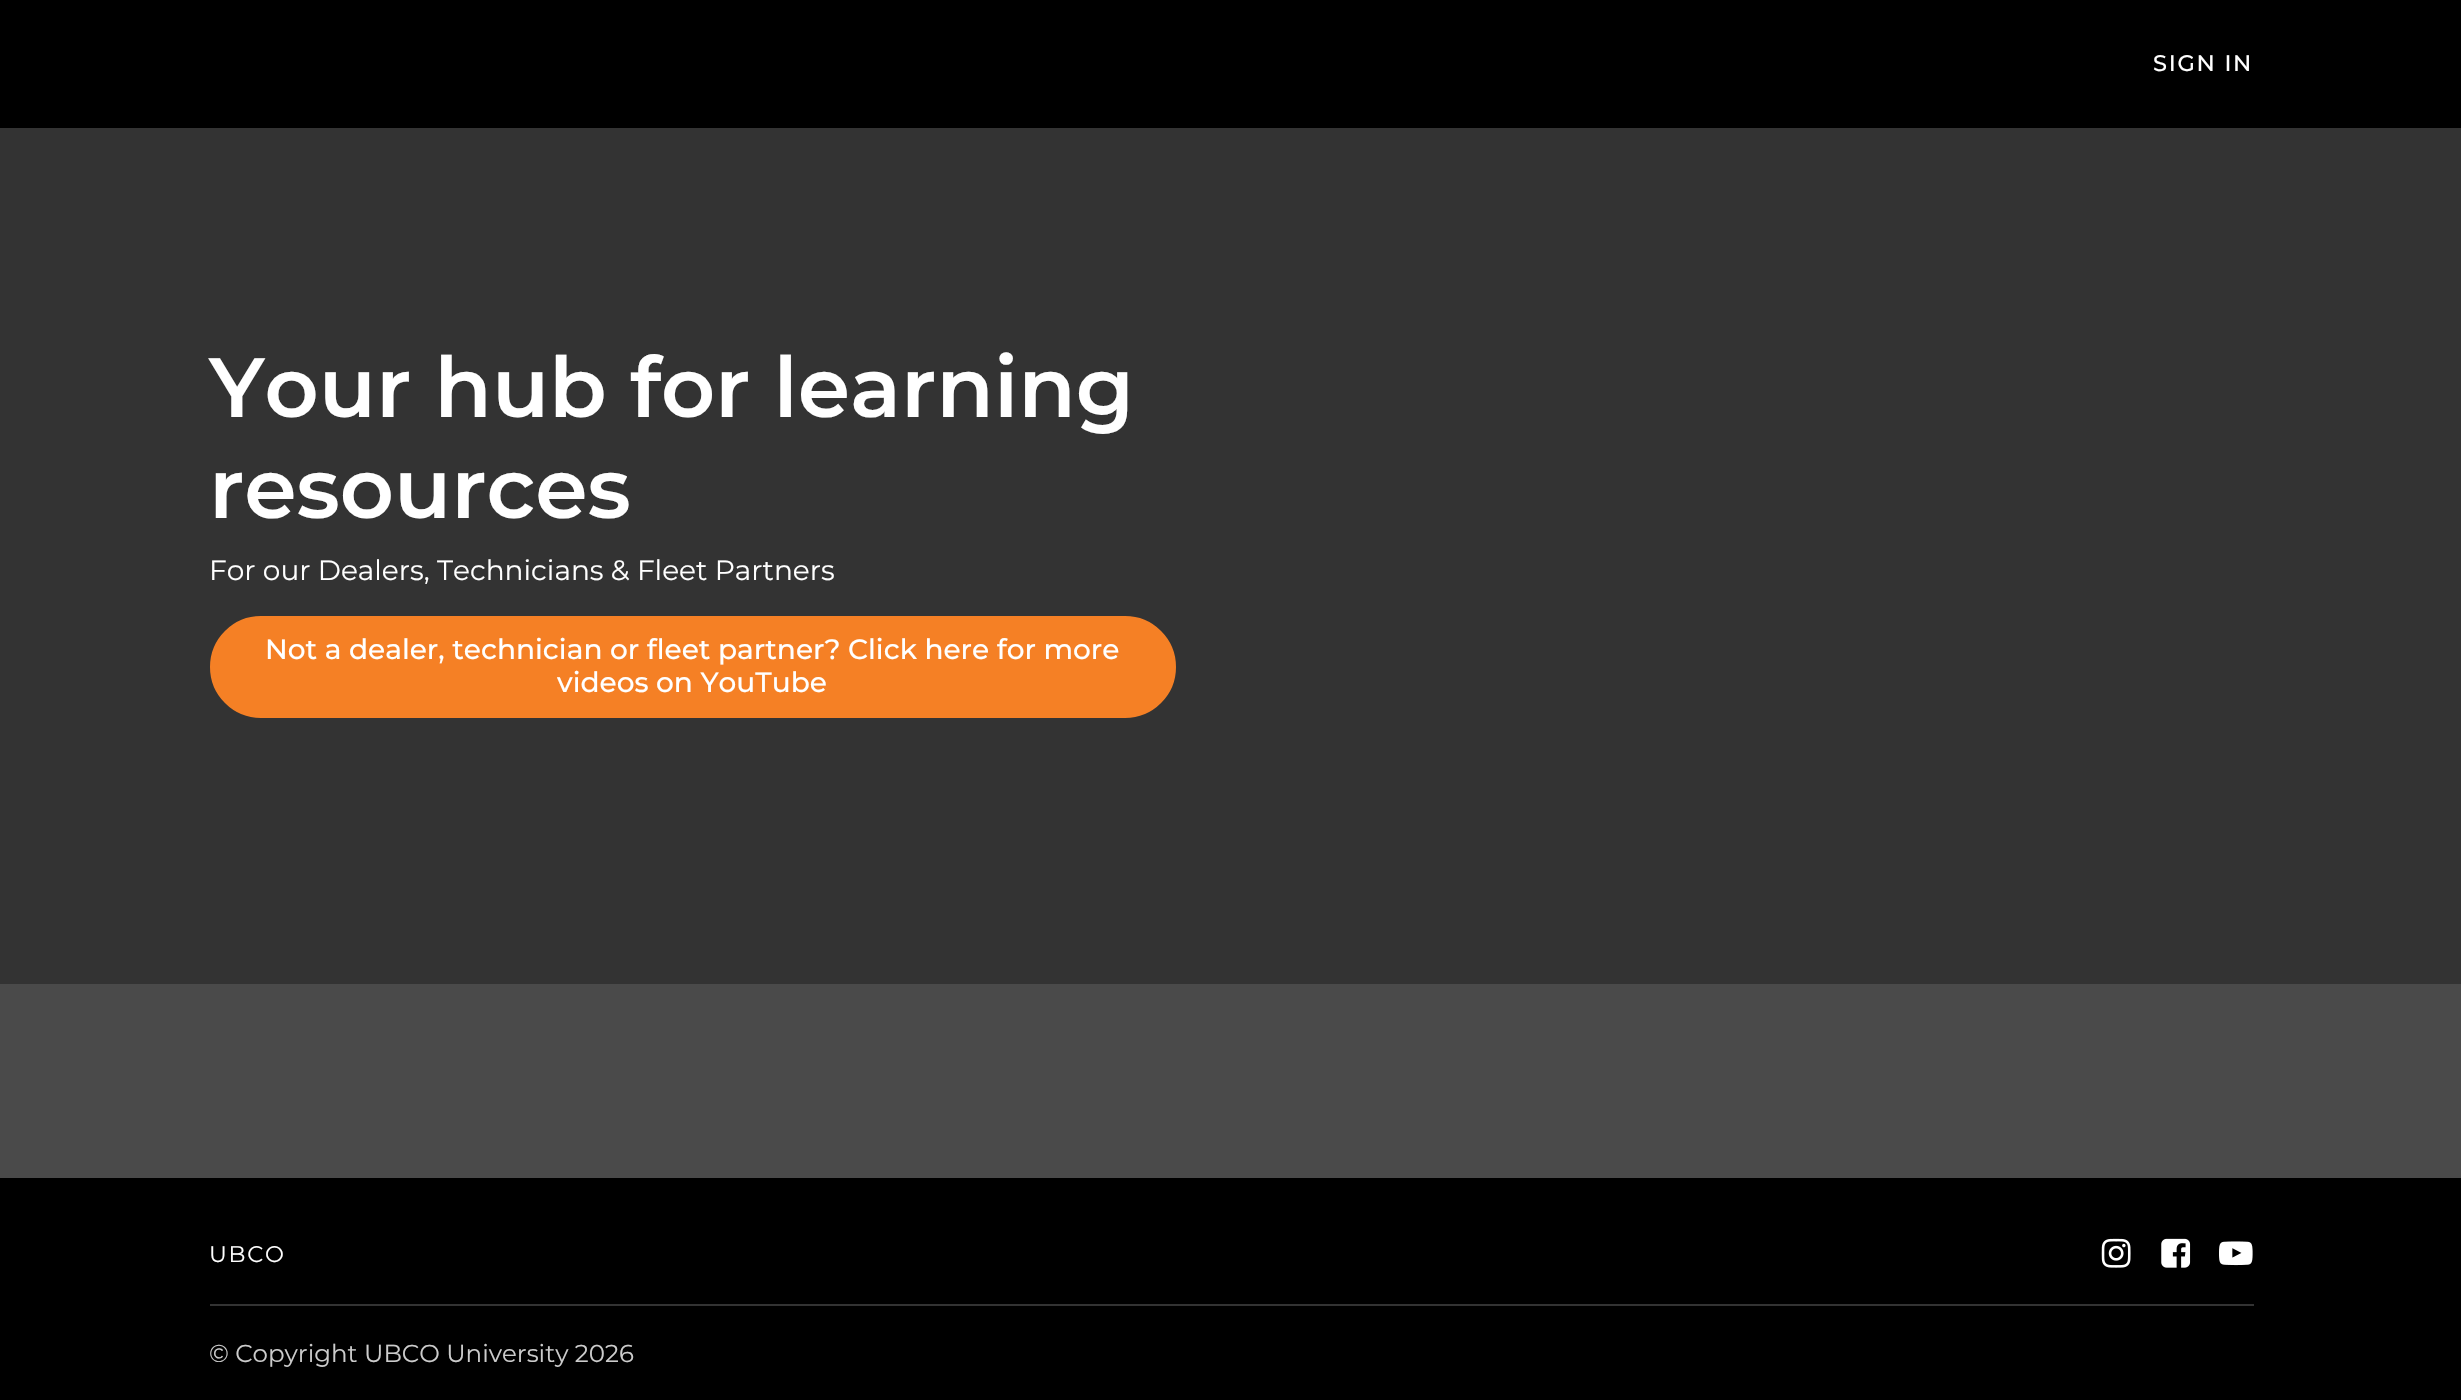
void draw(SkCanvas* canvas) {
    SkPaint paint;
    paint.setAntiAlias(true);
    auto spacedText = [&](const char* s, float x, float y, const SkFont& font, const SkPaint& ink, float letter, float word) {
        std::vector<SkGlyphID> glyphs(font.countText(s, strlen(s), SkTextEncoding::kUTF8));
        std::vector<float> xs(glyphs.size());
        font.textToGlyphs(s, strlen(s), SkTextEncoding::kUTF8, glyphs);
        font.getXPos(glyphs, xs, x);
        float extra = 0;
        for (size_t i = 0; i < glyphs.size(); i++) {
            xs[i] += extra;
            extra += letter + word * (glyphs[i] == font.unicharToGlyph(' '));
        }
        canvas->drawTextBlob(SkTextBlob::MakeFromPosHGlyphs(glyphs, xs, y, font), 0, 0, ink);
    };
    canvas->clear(0xFF4A4A4A);
    paint.setColor(0xFF000000);
    canvas->drawRect(SkRect::MakeXYWH(0, 0, 2461, 128), paint);
    SkFont font1(fontMgr->matchFamilyStyle("Montserrat", SkFontStyle(500, SkFontStyle::kNormal_Width, SkFontStyle::kUpright_Slant)), 22.5f);
    font1.setSubpixel(true);
    paint.setColor(0xFFFFFFFF);
    spacedText("SIGN IN", 2153, 71, font1, paint, 1.75f, 0);
    paint.setColor(0xFF333333);
    canvas->drawRect(SkRect::MakeXYWH(0, 128, 2461, 856), paint);
    SkFont font2(fontMgr->matchFamilyStyle("Montserrat", SkFontStyle(600, SkFontStyle::kNormal_Width, SkFontStyle::kUpright_Slant)), 84);
    font2.setSubpixel(true);
    paint.setColor(0xFFFFFFFF);
    canvas->drawString("Your hub for learning", 209, 417, font2, paint);
    canvas->drawString("resources", 209, 518, font2, paint);
    SkFont font3(fontMgr->matchFamilyStyle("Montserrat", SkFontStyle::Normal()), 28);
    font3.setSubpixel(true);
    canvas->drawString("For our Dealers, Technicians & Fleet Partners", 209, 580, font3, paint);
    paint.setColor(0xFFF58025);
    canvas->drawRoundRect(SkRect::MakeXYWH(212, 618, 962, 98), 49, 49, paint);
    paint.setStyle(SkPaint::kStroke_Style);
    paint.setStrokeWidth(4);
    canvas->drawRoundRect(SkRect::MakeXYWH(212, 618, 962, 98), 49, 49, paint);
    SkFont font4(fontMgr->matchFamilyStyle("Montserrat", SkFontStyle(500, SkFontStyle::kNormal_Width, SkFontStyle::kUpright_Slant)), 28);
    font4.setSubpixel(true);
    paint.setStyle(SkPaint::kFill_Style);
    paint.setColor(0xFFFFFFFF);
    canvas->drawString("Not a dealer, technician or fleet partner? Click here for more", 265, 659, font4, paint);
    canvas->drawString("videos on YouTube", 557, 692, font4, paint);
    paint.setColor(0xFF000000);
    canvas->drawRect(SkRect::MakeXYWH(0, 1178, 2461, 222), paint);
    SkFont font5(fontMgr->matchFamilyStyle("Montserrat", SkFontStyle::Normal()), 22.5f);
    font5.setSubpixel(true);
    paint.setColor(0xFFFFFFFF);
    spacedText("UBCO", 209, 1262, font5, paint, 1.75f, 0);
    canvas->drawImageRect(SkImages::DeferredFromEncodedData(SkData::MakeFromFileName("img1.png")), SkRect::MakeXYWH(2101, 1238, 30, 30), SkSamplingOptions());
    canvas->drawImageRect(SkImages::DeferredFromEncodedData(SkData::MakeFromFileName("img2.png")), SkRect::MakeXYWH(2161, 1238, 30, 30), SkSamplingOptions());
    canvas->drawImageRect(SkImages::DeferredFromEncodedData(SkData::MakeFromFileName("img3.png")), SkRect::MakeXYWH(2219, 1241, 34, 25), SkSamplingOptions());
    paint.setColor(0xFF333333);
    canvas->drawRect(SkRect::MakeXYWH(210, 1304, 2044, 2), paint);
    SkFont font6(fontMgr->matchFamilyStyle("Montserrat", SkFontStyle::Normal()), 24.5f);
    font6.setSubpixel(true);
    paint.setColor(0xFFCCCCCC);
    canvas->drawString("© Copyright UBCO University 2026", 209, 1362, font6, paint);
}
